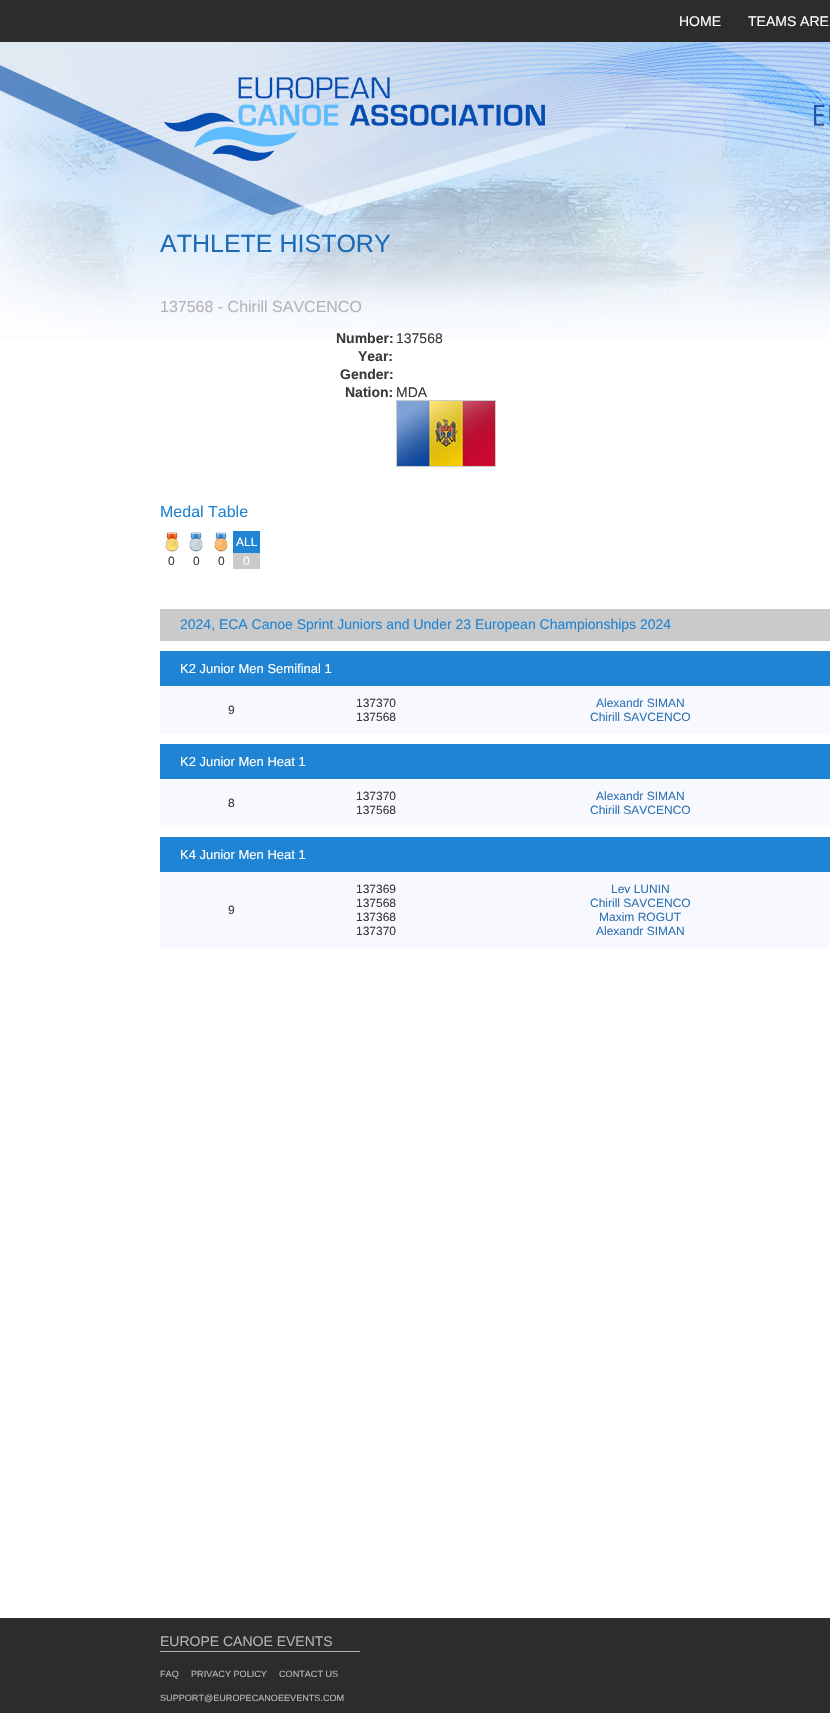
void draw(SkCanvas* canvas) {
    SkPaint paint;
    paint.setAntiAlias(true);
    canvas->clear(0xFFFFFFFF);
    paint.setColor(0xFF2C2C2C);
    canvas->drawRect(SkRect::MakeXYWH(0, 0, 830, 42), paint);
    SkFont font1(fontMgr->matchFamilyStyle("Liberation Sans", SkFontStyle::Normal()), 14);
    font1.setSubpixel(true);
    paint.setColor(0xFFFFFFFF);
    canvas->drawString("HOME", 679, 26, font1, paint);
    canvas->drawString("TEAMS ARE", 748, 26, font1, paint);
    canvas->drawImageRect(SkImages::DeferredFromEncodedData(SkData::MakeFromFileName("img1.png")), SkRect::MakeXYWH(0, 42, 830, 298), SkSamplingOptions());
    SkFont font2(fontMgr->matchFamilyStyle("Liberation Sans", SkFontStyle::Normal()), 25);
    font2.setSubpixel(true);
    paint.setColor(0xFF1D6AB6);
    canvas->drawString("ATHLETE HISTORY", 160, 252, font2, paint);
    SkFont font3(fontMgr->matchFamilyStyle("Liberation Sans", SkFontStyle::Normal()), 16);
    font3.setSubpixel(true);
    paint.setColor(0xFFB4B4B4);
    canvas->drawString("137568 - Chirill SAVCENCO", 160, 312, font3, paint);
    SkFont font4(fontMgr->matchFamilyStyle("Liberation Sans", SkFontStyle::Bold()), 14);
    font4.setSubpixel(true);
    paint.setColor(0xFF3A3A36);
    canvas->drawString("Number:", 336, 343, font4, paint);
    canvas->drawString("137568", 396, 343, font1, paint);
    canvas->drawString("Year:", 358, 361, font4, paint);
    canvas->drawString("Gender:", 340, 379, font4, paint);
    canvas->drawString("Nation:", 345, 397, font4, paint);
    canvas->drawString("MDA", 396, 397, font1, paint);
    canvas->drawImageRect(SkImages::DeferredFromEncodedData(SkData::MakeFromFileName("img2.png")), SkRect::MakeXYWH(396, 400, 100, 67), SkSamplingOptions());
    paint.setColor(0xFF1F84D3);
    canvas->drawString("Medal Table", 160, 517, font3, paint);
    canvas->drawImageRect(SkImages::DeferredFromEncodedData(SkData::MakeFromFileName("img3.png")), SkRect::MakeXYWH(165, 532, 14, 20), SkSamplingOptions());
    canvas->drawImageRect(SkImages::DeferredFromEncodedData(SkData::MakeFromFileName("img4.png")), SkRect::MakeXYWH(189, 532, 14, 20), SkSamplingOptions());
    canvas->drawImageRect(SkImages::DeferredFromEncodedData(SkData::MakeFromFileName("img5.png")), SkRect::MakeXYWH(214, 532, 14, 20), SkSamplingOptions());
    canvas->drawRect(SkRect::MakeXYWH(233, 531, 27, 22), paint);
    SkFont font5(fontMgr->matchFamilyStyle("Liberation Sans", SkFontStyle::Normal()), 12);
    font5.setSubpixel(true);
    paint.setColor(0xFFFFFFFF);
    canvas->drawString("ALL", 236, 546, font5, paint);
    paint.setColor(0xFF3A3A36);
    canvas->drawString("0", 168, 565, font5, paint);
    canvas->drawString("0", 193, 565, font5, paint);
    canvas->drawString("0", 218, 565, font5, paint);
    paint.setColor(0xFFCACACA);
    canvas->drawRect(SkRect::MakeXYWH(233, 553, 27, 16), paint);
    paint.setColor(0xFFFFFFFF);
    canvas->drawString("0", 243, 565, font5, paint);
    paint.setColor(0xFFCACACA);
    canvas->drawRect(SkRect::MakeXYWH(160, 609, 670, 32), paint);
    paint.setColor(0xFF1F84D3);
    canvas->drawString("2024, ECA Canoe Sprint Juniors and Under 23 European Championships 2024", 180, 629, font1, paint);
    canvas->drawRect(SkRect::MakeXYWH(160, 651, 670, 35), paint);
    SkFont font6(fontMgr->matchFamilyStyle("Liberation Sans", SkFontStyle::Normal()), 13);
    font6.setSubpixel(true);
    paint.setColor(0xFFFFFFFF);
    canvas->drawString("K2 Junior Men Semifinal 1", 180, 673, font6, paint);
    paint.setColor(0xFFF8F8FF);
    canvas->drawRect(SkRect::MakeXYWH(160, 686, 670, 48), paint);
    paint.setColor(0xFF3A3A36);
    canvas->drawString("9", 228, 714, font5, paint);
    canvas->drawString("137370", 356, 707, font5, paint);
    canvas->drawString("137568", 356, 721, font5, paint);
    paint.setColor(0xFF2E73B2);
    canvas->drawString("Alexandr SIMAN", 596, 707, font5, paint);
    canvas->drawString("Chirill SAVCENCO", 590, 721, font5, paint);
    paint.setColor(0xFF1F84D3);
    canvas->drawRect(SkRect::MakeXYWH(160, 744, 670, 35), paint);
    paint.setColor(0xFFFFFFFF);
    canvas->drawString("K2 Junior Men Heat 1", 180, 766, font6, paint);
    paint.setColor(0xFFF8F8FF);
    canvas->drawRect(SkRect::MakeXYWH(160, 779, 670, 48), paint);
    paint.setColor(0xFF3A3A36);
    canvas->drawString("8", 228, 807, font5, paint);
    canvas->drawString("137370", 356, 800, font5, paint);
    canvas->drawString("137568", 356, 814, font5, paint);
    paint.setColor(0xFF2E73B2);
    canvas->drawString("Alexandr SIMAN", 596, 800, font5, paint);
    canvas->drawString("Chirill SAVCENCO", 590, 814, font5, paint);
    paint.setColor(0xFF1F84D3);
    canvas->drawRect(SkRect::MakeXYWH(160, 837, 670, 35), paint);
    paint.setColor(0xFFFFFFFF);
    canvas->drawString("K4 Junior Men Heat 1", 180, 859, font6, paint);
    paint.setColor(0xFFF8F8FF);
    canvas->drawRect(SkRect::MakeXYWH(160, 872, 670, 76), paint);
    paint.setColor(0xFF3A3A36);
    canvas->drawString("9", 228, 914, font5, paint);
    canvas->drawString("137369", 356, 893, font5, paint);
    canvas->drawString("137568", 356, 907, font5, paint);
    canvas->drawString("137368", 356, 921, font5, paint);
    canvas->drawString("137370", 356, 935, font5, paint);
    paint.setColor(0xFF2E73B2);
    canvas->drawString("Lev LUNIN", 611, 893, font5, paint);
    canvas->drawString("Chirill SAVCENCO", 590, 907, font5, paint);
    canvas->drawString("Maxim ROGUT", 599, 921, font5, paint);
    canvas->drawString("Alexandr SIMAN", 596, 935, font5, paint);
    paint.setColor(0xFF2C2C2C);
    canvas->drawRect(SkRect::MakeXYWH(0, 1618, 830, 95), paint);
    paint.setColor(0xFFB4B4B4);
    canvas->drawRect(SkRect::MakeXYWH(160, 1651, 200, 1), paint);
    canvas->drawString("EUROPE CANOE EVENTS", 160, 1646, font1, paint);
    SkFont font7(fontMgr->matchFamilyStyle("Liberation Sans", SkFontStyle::Normal()), 9.1f);
    font7.setSubpixel(true);
    paint.setColor(0xFFBBBBBB);
    canvas->drawString("FAQ", 160, 1677, font7, paint);
    canvas->drawString("PRIVACY POLICY", 191, 1677, font7, paint);
    canvas->drawString("CONTACT US", 279, 1677, font7, paint);
    canvas->drawString("SUPPORT@EUROPECANOEEVENTS.COM", 160, 1701, font7, paint);
}
